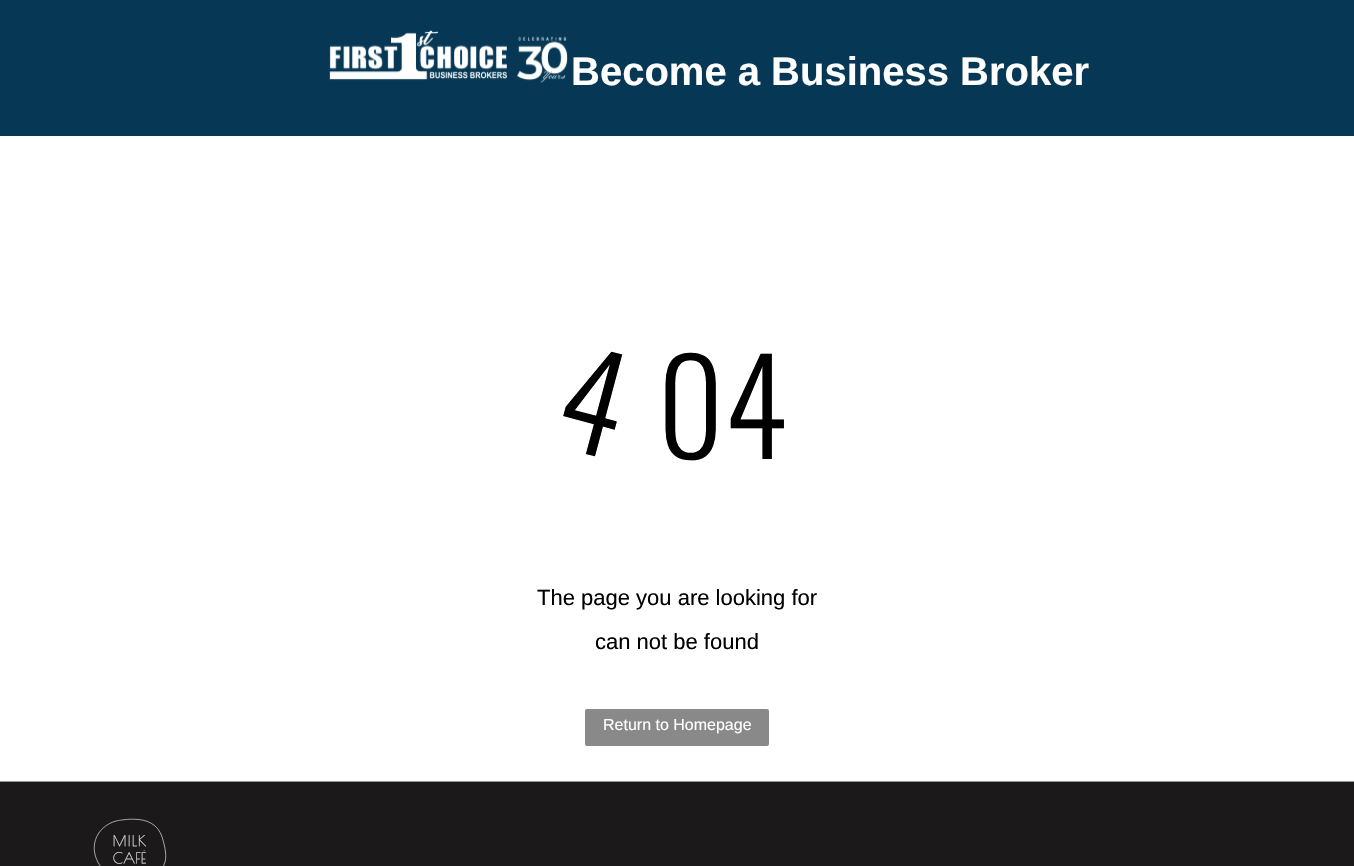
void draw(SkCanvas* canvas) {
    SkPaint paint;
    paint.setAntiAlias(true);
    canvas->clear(0xFFFFFFFF);
    paint.setColor(0xFF063855);
    canvas->drawRect(SkRect::MakeXYWH(0, 0, 1354, 136), paint);
    canvas->drawImageRect(SkImages::DeferredFromEncodedData(SkData::MakeFromFileName("img1.png")), SkRect::MakeXYWH(329, 30, 239, 53), SkSamplingOptions());
    SkFont font1(fontMgr->matchFamilyStyle("Liberation Sans", SkFontStyle::Bold()), 40);
    font1.setSubpixel(true);
    paint.setColor(0xFFFFFFFF);
    canvas->drawString("Become a Business Broker", 571, 85, font1, paint);
    SkFont font2(fontMgr->matchFamilyStyle("Oswald", SkFontStyle(300, SkFontStyle::kNormal_Width, SkFontStyle::kUpright_Slant)), 130);
    font2.setSubpixel(true);
    paint.setColor(0xFF000000);
    canvas->save();
    canvas->rotate(15, 549, 444);
    canvas->drawString("4", 549, 444, font2, paint);
    canvas->restore();
    canvas->drawString("04", 657, 459, font2, paint);
    SkFont font3(fontMgr->matchFamilyStyle("Liberation Sans", SkFontStyle::Normal()), 22);
    font3.setSubpixel(true);
    canvas->drawString("The page you are looking for", 537, 605, font3, paint);
    canvas->drawString("can not be found", 595, 649, font3, paint);
    paint.setColor(0xFF898989);
    canvas->drawRoundRect(SkRect::MakeXYWH(585, 709, 184, 37), 2, 2, paint);
    SkFont font4(fontMgr->matchFamilyStyle("Liberation Sans", SkFontStyle::Normal()), 16);
    font4.setSubpixel(true);
    paint.setColor(0xFFFFFFFF);
    canvas->drawString("Return to Homepage", 603, 730, font4, paint);
    paint.setColor(0xFF1B1919);
    canvas->drawRect(SkRect::MakeXYWH(0, 782, 1354, 84), paint);
    paint.setColor(0xFF959490);
    canvas->drawRect(SkRect::MakeXYWH(0, 781, 1354, 1), paint);
    canvas->drawImageRect(SkImages::DeferredFromEncodedData(SkData::MakeFromFileName("img2.png")), SkRect::MakeXYWH(93, 818, 74, 48), SkSamplingOptions());
}
